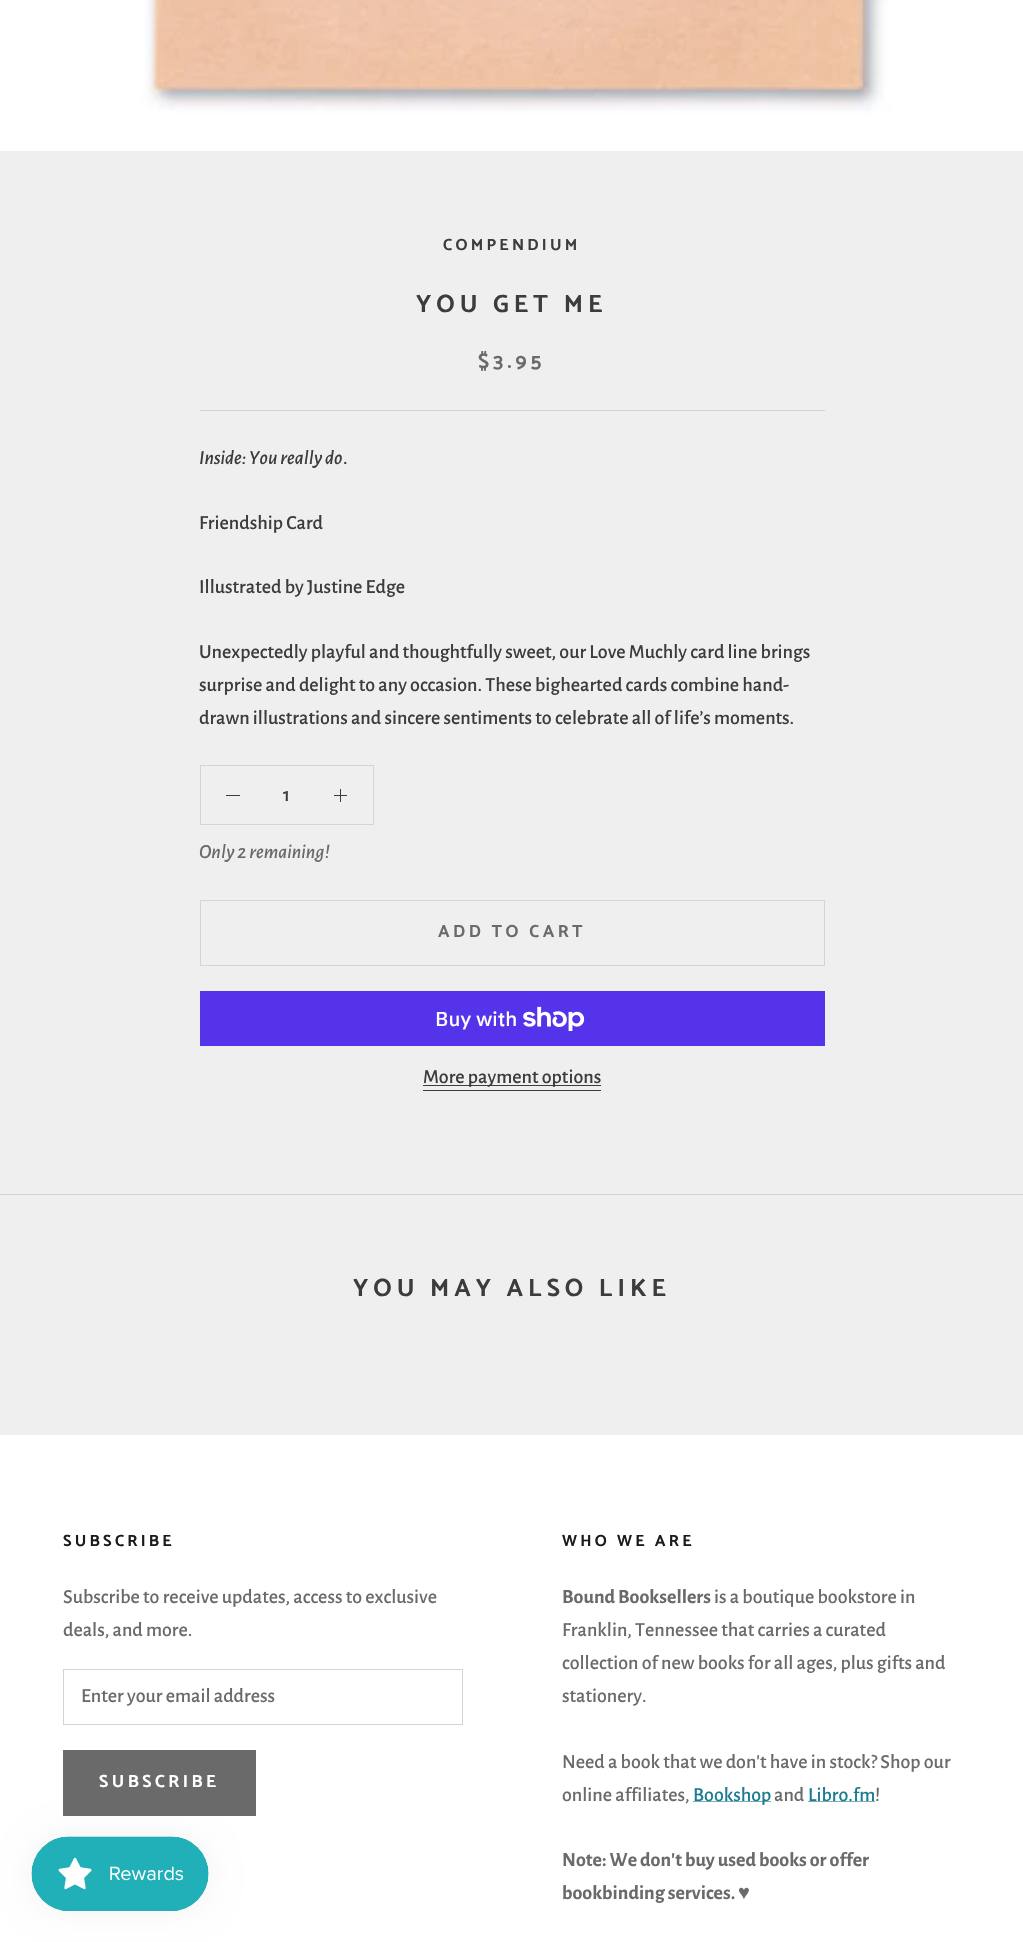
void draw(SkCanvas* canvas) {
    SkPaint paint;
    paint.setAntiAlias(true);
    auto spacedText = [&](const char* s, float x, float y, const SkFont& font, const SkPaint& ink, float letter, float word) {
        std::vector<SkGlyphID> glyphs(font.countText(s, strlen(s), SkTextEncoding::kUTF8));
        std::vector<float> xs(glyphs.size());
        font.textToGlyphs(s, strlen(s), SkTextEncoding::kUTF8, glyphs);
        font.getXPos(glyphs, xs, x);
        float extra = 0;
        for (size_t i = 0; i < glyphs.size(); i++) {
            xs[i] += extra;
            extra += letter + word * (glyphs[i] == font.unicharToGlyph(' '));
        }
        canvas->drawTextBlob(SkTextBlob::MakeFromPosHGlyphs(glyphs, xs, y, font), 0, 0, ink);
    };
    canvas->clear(0xFFEFEFEF);
    canvas->drawImageRect(SkImages::DeferredFromEncodedData(SkData::MakeFromFileName("img1.png")), SkRect::MakeXYWH(0, 0, 1023, 151), SkSamplingOptions());
    SkFont font1(fontMgr->matchFamilyStyle("Catamaran", SkFontStyle::Bold()), 16.25f);
    font1.setSubpixel(true);
    paint.setColor(0xFF3C3C3C);
    spacedText("COMPENDIUM", 443, 250, font1, paint, 3.25f, 0);
    SkFont font2(fontMgr->matchFamilyStyle("Catamaran", SkFontStyle::Bold()), 25);
    font2.setSubpixel(true);
    spacedText("YOU GET ME", 416, 312, font2, paint, 5, 0);
    SkFont font3(fontMgr->matchFamilyStyle("Catamaran", SkFontStyle::Bold()), 21);
    font3.setSubpixel(true);
    paint.setColor(0xFF6A6A6A);
    spacedText("$3.95", 478, 368, font3, paint, 4, 0);
    paint.setColor(0xFFD4D4D4);
    canvas->drawRect(SkRect::MakeXYWH(200, 410, 625, 1), paint);
    SkFont font4(fontMgr->matchFamilyStyle("Alegreya Sans", SkFontStyle(500, SkFontStyle::kNormal_Width, SkFontStyle::kItalic_Slant)), 20);
    font4.setSubpixel(true);
    paint.setColor(0xFF3C3C3C);
    canvas->drawString("Inside: You really do", 199, 464, font4, paint);
    SkFont font5(fontMgr->matchFamilyStyle("Alegreya Sans", SkFontStyle(500, SkFontStyle::kNormal_Width, SkFontStyle::kUpright_Slant)), 20);
    font5.setSubpixel(true);
    canvas->drawString(".", 343, 464, font5, paint);
    canvas->drawString("Friendship Card", 199, 529, font5, paint);
    canvas->drawString("Illustrated by Justine Edge", 199, 593, font5, paint);
    canvas->drawString("Unexpectedly playful and thoughtfully sweet, our Love Muchly card line brings", 199, 658, font5, paint);
    canvas->drawString("surprise and delight to any occasion. These bighearted cards combine hand-", 199, 691, font5, paint);
    canvas->drawString("drawn illustrations and sincere sentiments to celebrate all of life’s moments.", 199, 724, font5, paint);
    paint.setStyle(SkPaint::kStroke_Style);
    paint.setStrokeWidth(1);
    paint.setColor(0xFFD4D4D4);
    canvas->drawRect(SkRect::MakeXYWH(200.5f, 765.5f, 173, 59), paint);
    paint.setStyle(SkPaint::kFill_Style);
    paint.setColor(0xFF3C3C3C);
    canvas->drawRect(SkRect::MakeXYWH(226, 795, 14, 1), paint);
    canvas->drawString("1", 283, 801, font5, paint);
    canvas->drawRect(SkRect::MakeXYWH(340, 789, 1, 13), paint);
    canvas->drawRect(SkRect::MakeXYWH(334, 795, 13, 1), paint);
    paint.setColor(0xFF6A6A6A);
    canvas->drawString("Only 2 remaining!", 199, 858, font4, paint);
    paint.setStyle(SkPaint::kStroke_Style);
    paint.setColor(0xFFD4D4D4);
    canvas->drawRect(SkRect::MakeXYWH(200.5f, 900.5f, 624, 65), paint);
    SkFont font6(fontMgr->matchFamilyStyle("Catamaran", SkFontStyle::Bold()), 17.5f);
    font6.setSubpixel(true);
    paint.setStyle(SkPaint::kFill_Style);
    paint.setColor(0xFF6A6A6A);
    spacedText("ADD TO CART", 438, 937, font6, paint, 3.5f, 0);
    paint.setColor(0xFF5433EB);
    canvas->drawRect(SkRect::MakeXYWH(200, 991, 625, 55), paint);
    SkFont font7(fontMgr->matchFamilyStyle("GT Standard", SkFontStyle(500, SkFontStyle::kNormal_Width, SkFontStyle::kUpright_Slant)), 20);
    font7.setSubpixel(true);
    paint.setColor(0xFFFFFFFF);
    canvas->drawString("Buy with", 435, 1026, font7, paint);
    canvas->drawImageRect(SkImages::DeferredFromEncodedData(SkData::MakeFromFileName("img2.png")), SkRect::MakeXYWH(523, 1006, 62, 25), SkSamplingOptions());
    paint.setColor(0xFF3C3C3C);
    canvas->drawRect(SkRect::MakeXYWH(423, 1085, 178, 1), paint);
    canvas->drawString("More payment options", 423, 1083, font5, paint);
    canvas->drawRect(SkRect::MakeXYWH(423, 1090, 178, 1), paint);
    paint.setColor(0xFFD4D4D4);
    canvas->drawRect(SkRect::MakeXYWH(0, 1194, 1023, 1), paint);
    paint.setColor(0xFF3C3C3C);
    spacedText("YOU MAY ALSO LIKE", 353, 1296, font2, paint, 5, 0);
    paint.setColor(0xFFFFFFFF);
    canvas->drawRect(SkRect::MakeXYWH(0, 1435, 1023, 507), paint);
    paint.setColor(0xFF1C1B1B);
    spacedText("SUBSCRIBE", 63, 1546, font1, paint, 3.25f, 0);
    paint.setColor(0xFF6A6A6A);
    canvas->drawString("Subscribe to receive updates, access to exclusive", 63, 1603, font5, paint);
    canvas->drawString("deals, and more.", 63, 1636, font5, paint);
    paint.setStyle(SkPaint::kStroke_Style);
    paint.setColor(0xFFD4D4D4);
    canvas->drawRect(SkRect::MakeXYWH(63.5f, 1669.5f, 399, 55), paint);
    paint.setStyle(SkPaint::kFill_Style);
    paint.setColor(0xFF6A6A6A);
    canvas->drawString("Enter your email address", 81, 1702, font5, paint);
    paint.setStyle(SkPaint::kStroke_Style);
    canvas->drawRect(SkRect::MakeXYWH(63.5f, 1750.5f, 192, 65), paint);
    paint.setStyle(SkPaint::kFill_Style);
    canvas->drawRect(SkRect::MakeXYWH(64, 1751, 191, 64), paint);
    paint.setColor(0xFFFFFFFF);
    spacedText("SUBSCRIBE", 99, 1787, font6, paint, 3.5f, 0);
    paint.setColor(0xFF1C1B1B);
    spacedText("WHO WE ARE", 562, 1546, font1, paint, 3.25f, 0);
    SkFont font8(fontMgr->matchFamilyStyle("Alegreya Sans", SkFontStyle::Bold()), 20);
    font8.setSubpixel(true);
    paint.setColor(0xFF6A6A6A);
    canvas->drawString("Bound Booksellers", 562, 1603, font8, paint);
    canvas->drawString("is a boutique bookstore in", 714, 1603, font5, paint);
    canvas->drawString("Franklin, Tennessee that carries a curated", 562, 1636, font5, paint);
    canvas->drawString("collection of new books for all ages, plus gifts and", 562, 1669, font5, paint);
    canvas->drawString("stationery.", 562, 1702, font5, paint);
    canvas->drawString("Need a book that we don't have in stock? Shop our", 562, 1768, font5, paint);
    canvas->drawString("online affiliates,", 562, 1801, font5, paint);
    paint.setColor(0xFF76B0BE);
    canvas->drawRect(SkRect::MakeXYWH(693, 1801, 78, 1), paint);
    paint.setColor(0xFF1B7C92);
    canvas->drawString("Bookshop", 693, 1801, font5, paint);
    paint.setColor(0xFF6A6A6A);
    canvas->drawString("and", 774, 1801, font5, paint);
    paint.setColor(0xFF76B0BE);
    canvas->drawRect(SkRect::MakeXYWH(808, 1801, 67, 1), paint);
    paint.setColor(0xFF1B7C92);
    canvas->drawString("Libro.fm", 808, 1801, font5, paint);
    paint.setColor(0xFF6A6A6A);
    canvas->drawString("!", 875, 1801, font5, paint);
    canvas->drawString("Note: We don't buy used books or offer", 562, 1866, font8, paint);
    canvas->drawString("bookbinding services.", 562, 1899, font8, paint);
    SkFont font9(fontMgr->matchFamilyStyle("Liberation Sans", SkFontStyle::Normal()), 20);
    font9.setSubpixel(true);
    canvas->drawString("♥", 738, 1899, font9, paint);
    paint.setColor(0x0D000000);
    paint.setMaskFilter(SkMaskFilter::MakeBlur(kNormal_SkBlurStyle, 15.5f));
    canvas->drawRoundRect(SkRect::MakeXYWH(31, 1836, 178, 75), 37.5f, 37.5f, paint);
    paint.setMaskFilter(nullptr);
    canvas->drawImageRect(SkImages::DeferredFromEncodedData(SkData::MakeFromFileName("img3.png")), SkRect::MakeXYWH(31, 1836, 178, 75), SkSamplingOptions());
}
